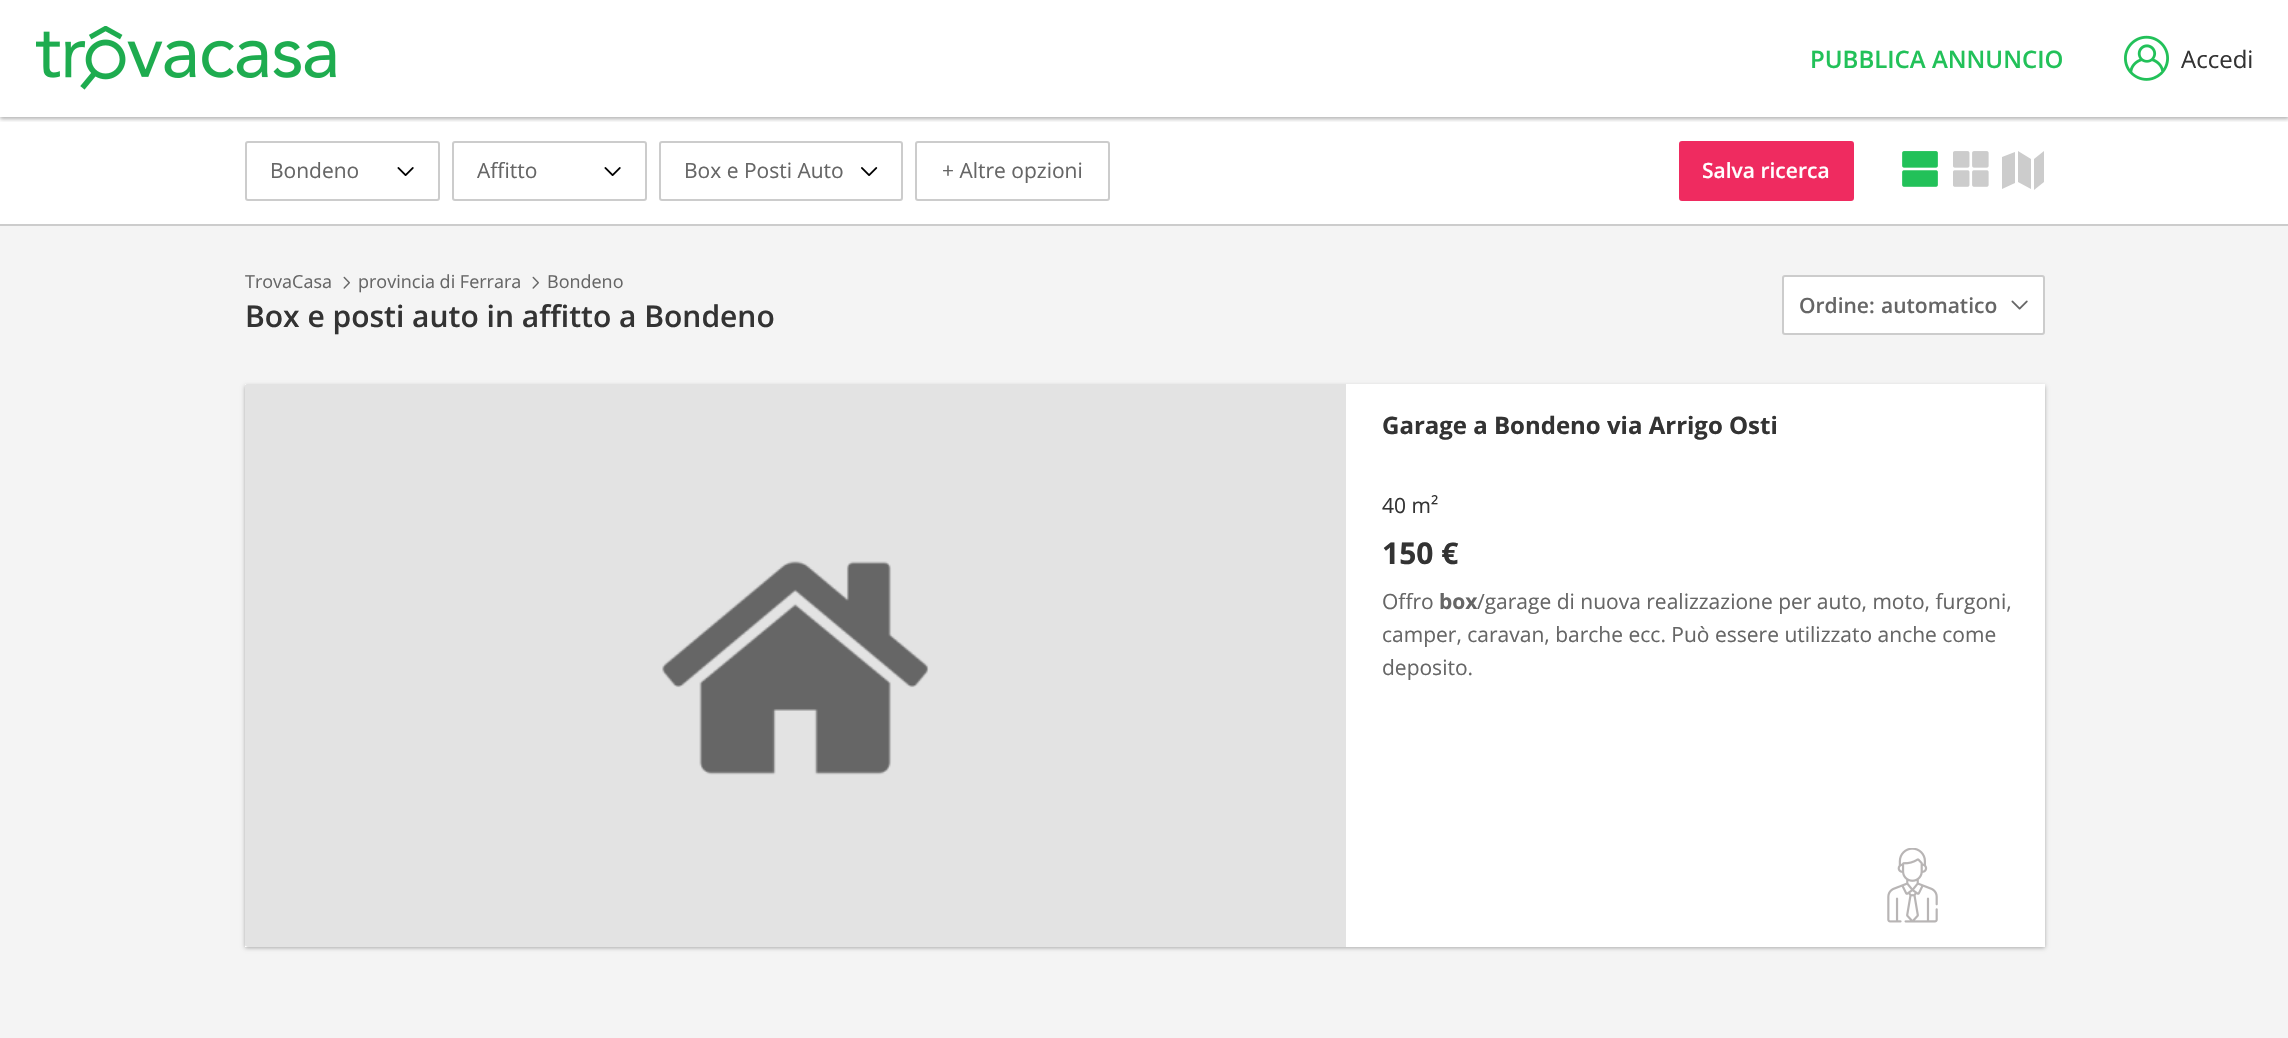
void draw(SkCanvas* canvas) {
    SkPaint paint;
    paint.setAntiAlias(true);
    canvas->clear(0xFFFFFFFF);
    canvas->save();
    canvas->clipRect(SkRect::MakeXYWH(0, 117, 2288, 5));
    paint.setColor(0x4D000000);
    paint.setMaskFilter(SkMaskFilter::MakeBlur(kNormal_SkBlurStyle, 2));
    canvas->drawRect(SkRect::MakeXYWH(0, 2, 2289, 117), paint);
    paint.setMaskFilter(nullptr);
    canvas->restore();
    canvas->drawImageRect(SkImages::DeferredFromEncodedData(SkData::MakeFromFileName("img1.png")), SkRect::MakeXYWH(36, 26, 300, 64), SkSamplingOptions());
    SkFont font1(fontMgr->matchFamilyStyle("Open Sans", SkFontStyle(600, SkFontStyle::kNormal_Width, SkFontStyle::kUpright_Slant)), 24);
    font1.setSubpixel(true);
    paint.setColor(0xFF22C159);
    canvas->drawString("PUBBLICA ANNUNCIO", 1810, 68, font1, paint);
    canvas->drawImageRect(SkImages::DeferredFromEncodedData(SkData::MakeFromFileName("img2.png")), SkRect::MakeXYWH(2124, 35, 45, 46), SkSamplingOptions());
    SkFont font2(fontMgr->matchFamilyStyle("Open Sans", SkFontStyle::Normal()), 24);
    font2.setSubpixel(true);
    paint.setColor(0xFF333333);
    canvas->drawString("Accedi", 2181, 68, font2, paint);
    paint.setColor(0xFFF4F4F4);
    canvas->drawRect(SkRect::MakeXYWH(0, 226, 2288, 812), paint);
    paint.setColor(0xFFCCCCCC);
    canvas->drawRect(SkRect::MakeXYWH(0, 224, 2288, 2), paint);
    paint.setStyle(SkPaint::kStroke_Style);
    paint.setStrokeWidth(2);
    canvas->drawRoundRect(SkRect::MakeXYWH(246, 142, 193, 58), 2, 2, paint);
    SkFont font3(fontMgr->matchFamilyStyle("Open Sans", SkFontStyle::Normal()), 21);
    font3.setSubpixel(true);
    paint.setStyle(SkPaint::kFill_Style);
    paint.setColor(0xFF666666);
    canvas->drawString("Bondeno", 270, 178, font3, paint);
    canvas->drawImageRect(SkImages::DeferredFromEncodedData(SkData::MakeFromFileName("img3.png")), SkRect::MakeXYWH(397, 167, 17, 9), SkSamplingOptions());
    paint.setStyle(SkPaint::kStroke_Style);
    paint.setColor(0xFFCCCCCC);
    canvas->drawRoundRect(SkRect::MakeXYWH(453, 142, 193, 58), 2, 2, paint);
    paint.setStyle(SkPaint::kFill_Style);
    paint.setColor(0xFF666666);
    canvas->drawString("Affitto", 477, 178, font3, paint);
    canvas->drawImageRect(SkImages::DeferredFromEncodedData(SkData::MakeFromFileName("img3.png")), SkRect::MakeXYWH(604, 167, 17, 9), SkSamplingOptions());
    paint.setStyle(SkPaint::kStroke_Style);
    paint.setColor(0xFFCCCCCC);
    canvas->drawRoundRect(SkRect::MakeXYWH(660, 142, 242, 58), 2, 2, paint);
    paint.setStyle(SkPaint::kFill_Style);
    paint.setColor(0xFF666666);
    canvas->drawString("Box e Posti Auto", 684, 178, font3, paint);
    canvas->drawImageRect(SkImages::DeferredFromEncodedData(SkData::MakeFromFileName("img4.png")), SkRect::MakeXYWH(861, 167, 17, 9), SkSamplingOptions());
    paint.setStyle(SkPaint::kStroke_Style);
    paint.setColor(0xFFCCCCCC);
    canvas->drawRoundRect(SkRect::MakeXYWH(916, 142, 193, 58), 2, 2, paint);
    paint.setStyle(SkPaint::kFill_Style);
    paint.setColor(0xFF666666);
    canvas->drawString("+ Altre opzioni", 942, 178, font3, paint);
    paint.setColor(0xFFEF2B60);
    canvas->drawRoundRect(SkRect::MakeXYWH(1680, 142, 173, 58), 2, 2, paint);
    paint.setStyle(SkPaint::kStroke_Style);
    canvas->drawRoundRect(SkRect::MakeXYWH(1680, 142, 173, 58), 2, 2, paint);
    SkFont font4(fontMgr->matchFamilyStyle("Open Sans", SkFontStyle(600, SkFontStyle::kNormal_Width, SkFontStyle::kUpright_Slant)), 21);
    font4.setSubpixel(true);
    paint.setStyle(SkPaint::kFill_Style);
    paint.setColor(0xFFFFFFFF);
    canvas->drawString("Salva ricerca", 1702, 178, font4, paint);
    canvas->drawImageRect(SkImages::DeferredFromEncodedData(SkData::MakeFromFileName("img5.png")), SkRect::MakeXYWH(1902, 151, 36, 36), SkSamplingOptions());
    canvas->drawImageRect(SkImages::DeferredFromEncodedData(SkData::MakeFromFileName("img6.png")), SkRect::MakeXYWH(1953, 151, 36, 36), SkSamplingOptions());
    paint.setColor(0xFFCCCCCC);
    canvas->drawPath(SkPathBuilder().moveTo(2002, 157).lineTo(2015, 152).lineTo(2015, 183).lineTo(2002, 189).close().moveTo(2018, 151).lineTo(2031, 159).lineTo(2031, 189).lineTo(2018, 182).close().moveTo(2034, 159).lineTo(2044, 151).lineTo(2044, 182).lineTo(2034, 190).close().detach(), paint);
    paint.setColor(0xFFFFFFFF);
    canvas->drawRoundRect(SkRect::MakeXYWH(1783, 276, 261, 58), 2, 2, paint);
    paint.setStyle(SkPaint::kStroke_Style);
    paint.setColor(0xFFCCCCCC);
    canvas->drawRoundRect(SkRect::MakeXYWH(1783, 276, 261, 58), 2, 2, paint);
    paint.setStyle(SkPaint::kFill_Style);
    paint.setColor(0xFF666666);
    canvas->drawString("Ordine:", 1799, 313, font4, paint);
    canvas->drawString("automatico", 1881, 313, font4, paint);
    canvas->drawImageRect(SkImages::DeferredFromEncodedData(SkData::MakeFromFileName("img7.png")), SkRect::MakeXYWH(2011, 300, 17, 10), SkSamplingOptions());
    SkFont font5(fontMgr->matchFamilyStyle("Open Sans", SkFontStyle::Normal()), 18);
    font5.setSubpixel(true);
    canvas->drawString("TrovaCasa", 245, 288, font5, paint);
    canvas->drawImageRect(SkImages::DeferredFromEncodedData(SkData::MakeFromFileName("img8.png")), SkRect::MakeXYWH(343, 276, 7, 13), SkSamplingOptions());
    canvas->drawString("provincia di Ferrara", 358, 288, font5, paint);
    canvas->drawImageRect(SkImages::DeferredFromEncodedData(SkData::MakeFromFileName("img8.png")), SkRect::MakeXYWH(532, 276, 7, 13), SkSamplingOptions());
    canvas->drawString("Bondeno", 547, 288, font5, paint);
    SkFont font6(fontMgr->matchFamilyStyle("Open Sans", SkFontStyle(600, SkFontStyle::kNormal_Width, SkFontStyle::kUpright_Slant)), 30);
    font6.setSubpixel(true);
    paint.setColor(0xFF333333);
    canvas->drawString("Box e posti auto in affitto a Bondeno", 245, 327, font6, paint);
    paint.setColor(0x4D000000);
    paint.setMaskFilter(SkMaskFilter::MakeBlur(kNormal_SkBlurStyle, 2));
    canvas->drawRect(SkRect::MakeXYWH(245, 386, 1800, 562), paint);
    paint.setMaskFilter(nullptr);
    paint.setColor(0xFFFFFFFF);
    canvas->drawRect(SkRect::MakeXYWH(245, 384, 1800, 563), paint);
    paint.setColor(0xFFE3E3E3);
    canvas->drawPath(SkPathBuilder().moveTo(248, 384).lineTo(1346, 384).lineTo(1346, 947).lineTo(248, 947).cubicTo(246.5f, 947, 245, 945.5f, 245, 944).lineTo(245, 387).cubicTo(245, 385.5f, 246.5f, 384, 248, 384).close().detach(), paint);
    canvas->drawImageRect(SkImages::DeferredFromEncodedData(SkData::MakeFromFileName("img9.png")), SkRect::MakeXYWH(245, 384, 684, 562), SkSamplingOptions());
    SkFont font7(fontMgr->matchFamilyStyle("Open Sans", SkFontStyle::Bold()), 24);
    font7.setSubpixel(true);
    paint.setColor(0xFF333333);
    canvas->drawString("Garage a Bondeno via Arrigo Osti", 1382, 434, font7, paint);
    canvas->drawString("40 m²", 1382, 513, font3, paint);
    SkFont font8(fontMgr->matchFamilyStyle("Open Sans", SkFontStyle::Bold()), 30);
    font8.setSubpixel(true);
    canvas->drawString("150 €", 1382, 564, font8, paint);
    paint.setColor(0xFF666666);
    canvas->drawString("Offro", 1382, 609, font3, paint);
    SkFont font9(fontMgr->matchFamilyStyle("Open Sans", SkFontStyle::Bold()), 21);
    font9.setSubpixel(true);
    canvas->drawString("box", 1439, 609, font9, paint);
    canvas->drawString("/garage di nuova realizzazione per auto, moto, furgoni,", 1477, 609, font3, paint);
    canvas->drawString("camper, caravan, barche ecc. Può essere utilizzato anche come", 1382, 642, font3, paint);
    canvas->drawString("deposito.", 1382, 675, font3, paint);
    canvas->drawImageRect(SkImages::DeferredFromEncodedData(SkData::MakeFromFileName("img10.png")), SkRect::MakeXYWH(1887, 848, 51, 75), SkSamplingOptions());
}
